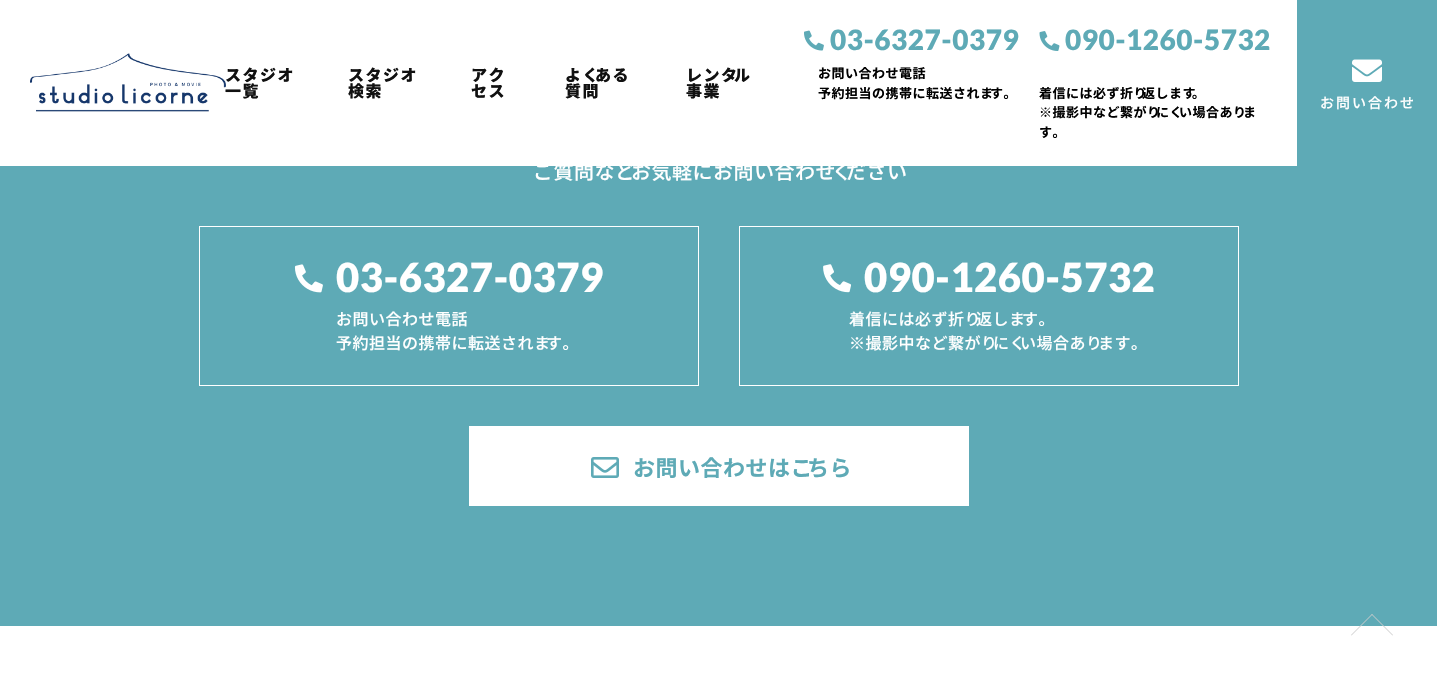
void draw(SkCanvas* canvas) {
    SkPaint paint;
    paint.setAntiAlias(true);
    auto spacedText = [&](const char* s, float x, float y, const SkFont& font, const SkPaint& ink, float letter, float word) {
        std::vector<SkGlyphID> glyphs(font.countText(s, strlen(s), SkTextEncoding::kUTF8));
        std::vector<float> xs(glyphs.size());
        font.textToGlyphs(s, strlen(s), SkTextEncoding::kUTF8, glyphs);
        font.getXPos(glyphs, xs, x);
        float extra = 0;
        for (size_t i = 0; i < glyphs.size(); i++) {
            xs[i] += extra;
            extra += letter + word * (glyphs[i] == font.unicharToGlyph(' '));
        }
        canvas->drawTextBlob(SkTextBlob::MakeFromPosHGlyphs(glyphs, xs, y, font), 0, 0, ink);
    };
    canvas->clear(0xFFFFFFFF);
    canvas->drawImageRect(SkImages::DeferredFromEncodedData(SkData::MakeFromFileName("img1.png")), SkRect::MakeXYWH(30, 53, 196, 59), SkSamplingOptions());
    SkFont font1(fontMgr->matchFamilyStyle("Noto Sans JP", SkFontStyle(900, SkFontStyle::kNormal_Width, SkFontStyle::kUpright_Slant)), 16);
    font1.setSubpixel(true);
    paint.setColor(0xFF111111);
    spacedText("スタジオ", 225, 81, font1, paint, 1.5f, 0);
    spacedText("一覧", 225, 97, font1, paint, 1.5f, 0);
    spacedText("スタジオ", 348, 81, font1, paint, 1.5f, 0);
    spacedText("検索", 348, 97, font1, paint, 1.5f, 0);
    spacedText("アク", 471, 81, font1, paint, 1.5f, 0);
    spacedText("セス", 471, 97, font1, paint, 1.5f, 0);
    spacedText("よく", 565, 81, font1, paint, 1.5f, 0);
    spacedText("ある", 595, 81, font1, paint, 1.5f, 0);
    spacedText("質問", 565, 97, font1, paint, 1.5f, 0);
    spacedText("レンタ", 686, 81, font1, paint, 1.5f, 0);
    spacedText("ル", 734, 81, font1, paint, 1.5f, 0);
    spacedText("事業", 686, 97, font1, paint, 1.5f, 0);
    canvas->drawImageRect(SkImages::DeferredFromEncodedData(SkData::MakeFromFileName("img2.png")), SkRect::MakeXYWH(804, 30, 20, 21), SkSamplingOptions());
    SkFont font2(fontMgr->matchFamilyStyle("Lato", SkFontStyle(900, SkFontStyle::kNormal_Width, SkFontStyle::kUpright_Slant)), 28);
    font2.setSubpixel(true);
    paint.setColor(0xFF5EAAB6);
    spacedText("03-6327-0379", 830, 50, font2, paint, 0.5f, 0);
    SkFont font3(fontMgr->matchFamilyStyle("Noto Sans JP", SkFontStyle::Bold()), 13);
    font3.setSubpixel(true);
    paint.setColor(0xFF000000);
    spacedText("お問い合わせ電話", 818, 78, font3, paint, 0.5f, 0);
    spacedText("予約担当の携帯に転送されま", 818, 98, font3, paint, 0.5f, 0);
    spacedText("す。", 990, 98, font3, paint, 0.5f, 0);
    canvas->drawImageRect(SkImages::DeferredFromEncodedData(SkData::MakeFromFileName("img3.png")), SkRect::MakeXYWH(1039, 31, 21, 20), SkSamplingOptions());
    paint.setColor(0xFF5EAAB6);
    spacedText("090-1260-5732", 1065, 50, font2, paint, 0.5f, 0);
    paint.setColor(0xFF000000);
    spacedText("着信には必ず折り", 1039, 98, font3, paint, 0.5f, 0);
    spacedText("返します", 1142, 98, font3, paint, 0.5f, 0);
    spacedText("。", 1192, 98, font3, paint, 0.5f, 0);
    spacedText("※撮影中など繋がり", 1039, 117, font3, paint, 0.5f, 0);
    spacedText("にく", 1156, 117, font3, paint, 0.5f, 0);
    spacedText("い場合あり", 1179, 117, font3, paint, 0.5f, 0);
    spacedText("ま", 1243, 117, font3, paint, 0.5f, 0);
    spacedText("す。", 1039, 137, font3, paint, 0.5f, 0);
    paint.setColor(0xFF5EAAB6);
    canvas->drawRect(SkRect::MakeXYWH(1297, 0, 140, 166), paint);
    canvas->drawImageRect(SkImages::DeferredFromEncodedData(SkData::MakeFromFileName("img4.png")), SkRect::MakeXYWH(1352, 59, 30, 23), SkSamplingOptions());
    SkFont font4(fontMgr->matchFamilyStyle("Noto Sans JP", SkFontStyle(500, SkFontStyle::kNormal_Width, SkFontStyle::kUpright_Slant)), 14);
    font4.setSubpixel(true);
    paint.setColor(0xFFFFFFFF);
    spacedText("お問い合わせ", 1320, 108, font4, paint, 2, 0);
    paint.setColor(0xFF5EAAB6);
    canvas->drawRect(SkRect::MakeXYWH(0, 166, 1437, 460), paint);
    SkFont font5(fontMgr->matchFamilyStyle("Noto Sans JP", SkFontStyle(500, SkFontStyle::kNormal_Width, SkFontStyle::kUpright_Slant)), 20);
    font5.setSubpixel(true);
    paint.setColor(0xFFFFFFFF);
    spacedText("ご質問など", 533, 179, font5, paint, 0.5f, 0);
    spacedText("お気軽にお問い合わせ", 631, 179, font5, paint, 0.5f, 0);
    spacedText("く", 832, 179, font5, paint, 0.5f, 0);
    spacedText("ださい", 846, 179, font5, paint, 0.5f, 0);
    paint.setStyle(SkPaint::kStroke_Style);
    paint.setStrokeWidth(1);
    canvas->drawRect(SkRect::MakeXYWH(199.5f, 226.5f, 499, 159), paint);
    canvas->drawImageRect(SkImages::DeferredFromEncodedData(SkData::MakeFromFileName("img5.png")), SkRect::MakeXYWH(294, 264, 29, 29), SkSamplingOptions());
    SkFont font6(fontMgr->matchFamilyStyle("Lato", SkFontStyle(900, SkFontStyle::kNormal_Width, SkFontStyle::kUpright_Slant)), 40);
    font6.setSubpixel(true);
    paint.setStyle(SkPaint::kFill_Style);
    spacedText("03-6327-0379", 336, 292, font6, paint, 0.5f, 0);
    SkFont font7(fontMgr->matchFamilyStyle("Noto Sans JP", SkFontStyle(500, SkFontStyle::kNormal_Width, SkFontStyle::kUpright_Slant)), 16);
    font7.setSubpixel(true);
    spacedText("お問い合わせ電話", 336, 325, font7, paint, 0.5f, 0);
    spacedText("予約担当の携帯に転送されま", 336, 349, font7, paint, 0.5f, 0);
    spacedText("す。", 546, 349, font7, paint, 0.5f, 0);
    paint.setStyle(SkPaint::kStroke_Style);
    canvas->drawRect(SkRect::MakeXYWH(739.5f, 226.5f, 499, 159), paint);
    canvas->drawImageRect(SkImages::DeferredFromEncodedData(SkData::MakeFromFileName("img6.png")), SkRect::MakeXYWH(823, 264, 28, 29), SkSamplingOptions());
    paint.setStyle(SkPaint::kFill_Style);
    spacedText("090-1260-5732", 864, 292, font6, paint, 0.5f, 0);
    spacedText("着信には必ず折り", 849, 325, font7, paint, 0.5f, 0);
    spacedText("返しま", 976, 325, font7, paint, 0.5f, 0);
    spacedText("す。", 1022, 325, font7, paint, 0.5f, 0);
    spacedText("※撮影中など繋がり", 849, 349, font7, paint, 0.5f, 0);
    spacedText("にく", 993, 349, font7, paint, 0.5f, 0);
    spacedText("い場合あり", 1020, 349, font7, paint, 0.5f, 0);
    spacedText("ます。", 1098, 349, font7, paint, 0.5f, 0);
    canvas->drawRect(SkRect::MakeXYWH(469, 426, 500, 80), paint);
    canvas->drawImageRect(SkImages::DeferredFromEncodedData(SkData::MakeFromFileName("img7.png")), SkRect::MakeXYWH(591, 457, 28, 21), SkSamplingOptions());
    SkFont font8(fontMgr->matchFamilyStyle("Noto Sans JP", SkFontStyle::Bold()), 22);
    font8.setSubpixel(true);
    paint.setColor(0xFF5EAAB6);
    spacedText("お問い合わせはこ", 633, 476, font8, paint, 0.5f, 0);
    spacedText("ちら", 807, 476, font8, paint, 0.5f, 0);
    paint.setColor(0xFFCCCCCC);
    canvas->drawPath(SkPathBuilder().moveTo(1372, 614).lineTo(1393, 635).lineTo(1392.5f, 635.5f).lineTo(1371.5f, 614.5f).close().detach(), paint);
    canvas->drawPath(SkPathBuilder().moveTo(1372, 614).lineTo(1372.5f, 614.5f).lineTo(1351.5f, 635.5f).lineTo(1351, 635).close().detach(), paint);
}
